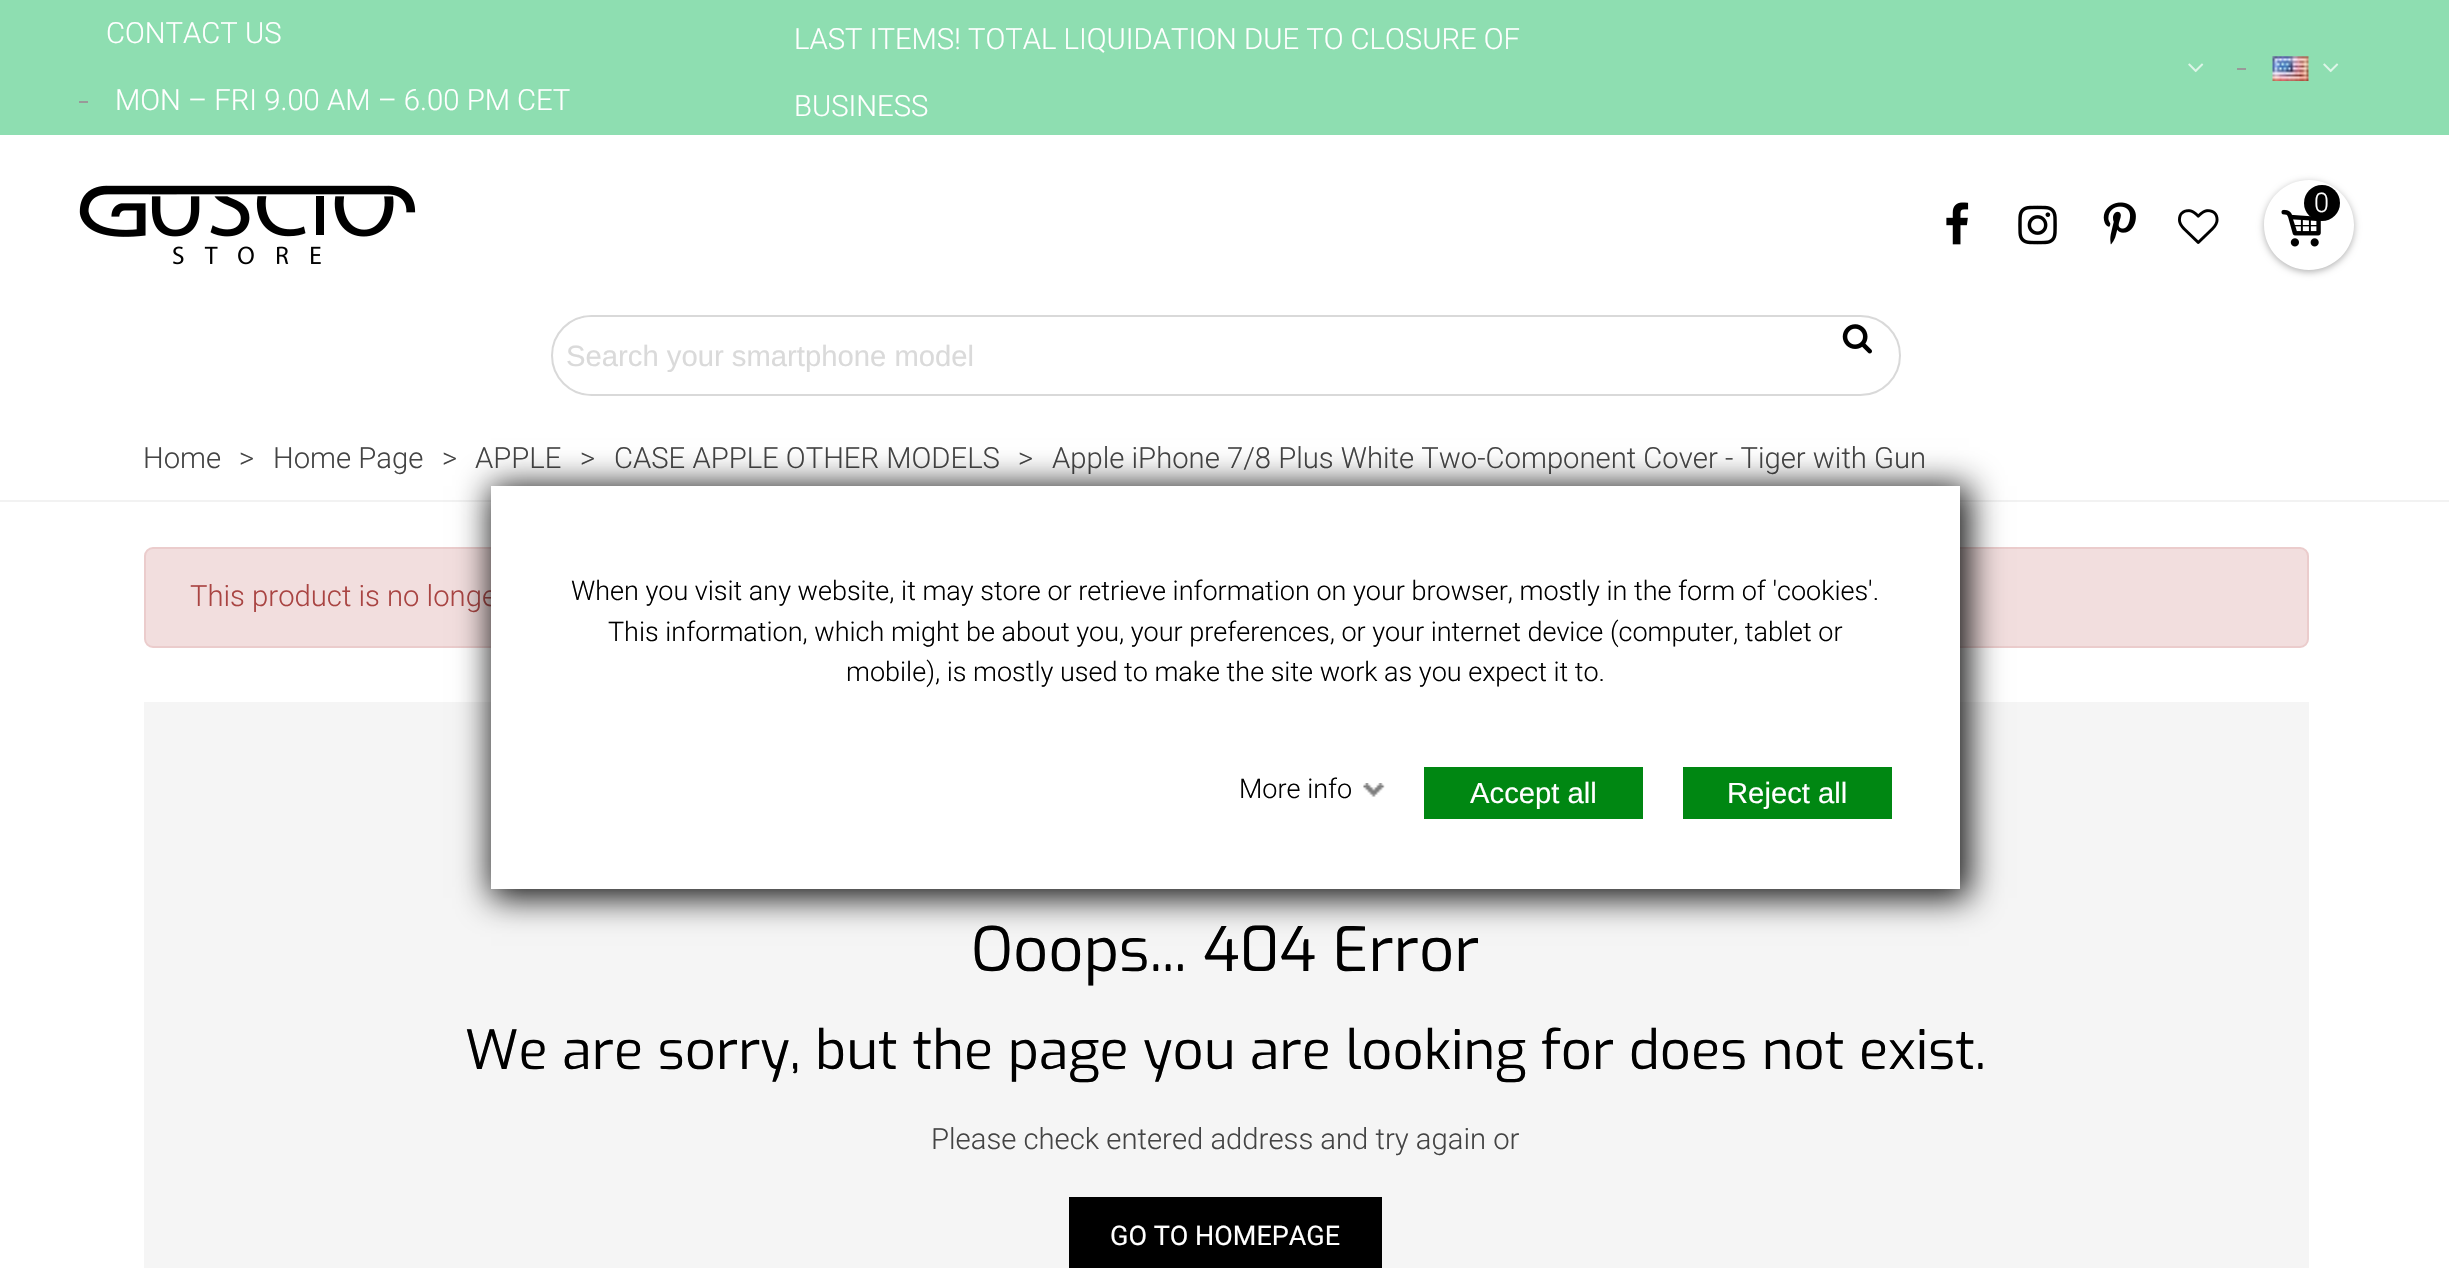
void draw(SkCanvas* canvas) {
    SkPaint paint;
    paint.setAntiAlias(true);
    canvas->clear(0xFFFFFFFF);
    paint.setColor(0xFF8EDEB1);
    canvas->drawRect(SkRect::MakeXYWH(0, 0, 2449, 135), paint);
    SkFont font1(fontMgr->matchFamilyStyle("Roboto", SkFontStyle(300, SkFontStyle::kNormal_Width, SkFontStyle::kUpright_Slant)), 29.25f);
    font1.setSubpixel(true);
    paint.setColor(0xFFFFFFFF);
    canvas->drawString("CONTACT US", 106, 43, font1, paint);
    paint.setColor(0xFF999999);
    canvas->drawRect(SkRect::MakeXYWH(79, 101, 9, 2), paint);
    paint.setColor(0xFFFFFFFF);
    canvas->drawString("MON – FRI 9.00 AM – 6.00 PM CET", 115, 110, font1, paint);
    canvas->drawString("LAST ITEMS! TOTAL LIQUIDATION DUE TO CLOSURE OF", 794, 49, font1, paint);
    canvas->drawString("BUSINESS", 794, 116, font1, paint);
    canvas->drawImageRect(SkImages::DeferredFromEncodedData(SkData::MakeFromFileName("img1.png")), SkRect::MakeXYWH(2188, 63, 16, 10), SkSamplingOptions());
    paint.setColor(0xFF999999);
    canvas->drawRect(SkRect::MakeXYWH(2237, 68, 9, 2), paint);
    canvas->drawImageRect(SkImages::DeferredFromEncodedData(SkData::MakeFromFileName("img2.png")), SkRect::MakeXYWH(2272, 56, 37, 25), SkSamplingOptions());
    canvas->drawImageRect(SkImages::DeferredFromEncodedData(SkData::MakeFromFileName("img1.png")), SkRect::MakeXYWH(2323, 63, 16, 10), SkSamplingOptions());
    canvas->drawImageRect(SkImages::DeferredFromEncodedData(SkData::MakeFromFileName("img3.png")), SkRect::MakeXYWH(79, 185, 337, 80), SkSamplingOptions());
    canvas->drawImageRect(SkImages::DeferredFromEncodedData(SkData::MakeFromFileName("img4.png")), SkRect::MakeXYWH(1946, 202, 23, 43), SkSamplingOptions());
    canvas->drawImageRect(SkImages::DeferredFromEncodedData(SkData::MakeFromFileName("img5.png")), SkRect::MakeXYWH(2018, 205, 39, 40), SkSamplingOptions());
    canvas->drawImageRect(SkImages::DeferredFromEncodedData(SkData::MakeFromFileName("img6.png")), SkRect::MakeXYWH(2103, 202, 33, 43), SkSamplingOptions());
    canvas->drawImageRect(SkImages::DeferredFromEncodedData(SkData::MakeFromFileName("img7.png")), SkRect::MakeXYWH(2178, 209, 41, 35), SkSamplingOptions());
    canvas->save();
    canvas->clipPath(SkPathBuilder(SkPathFillType::kEvenOdd).moveTo(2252, 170).lineTo(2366, 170).lineTo(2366, 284).lineTo(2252, 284).close().moveTo(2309, 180).cubicTo(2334, 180, 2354, 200, 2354, 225).cubicTo(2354, 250, 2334, 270, 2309, 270).cubicTo(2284, 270, 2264, 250, 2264, 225).cubicTo(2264, 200, 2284, 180, 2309, 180).close().detach(), true);
    paint.setColor(0xFFB1B1B1);
    paint.setMaskFilter(SkMaskFilter::MakeBlur(kNormal_SkBlurStyle, 3.5f));
    canvas->drawRoundRect(SkRect::MakeXYWH(2264, 182, 90, 90), 45, 45, paint);
    paint.setMaskFilter(nullptr);
    canvas->restore();
    canvas->drawImageRect(SkImages::DeferredFromEncodedData(SkData::MakeFromFileName("img8.png")), SkRect::MakeXYWH(2281, 209, 40, 38), SkSamplingOptions());
    paint.setColor(0xFF000000);
    canvas->drawCircle(2322, 203, 18, paint);
    SkFont font2(fontMgr->matchFamilyStyle("Roboto", SkFontStyle(300, SkFontStyle::kNormal_Width, SkFontStyle::kUpright_Slant)), 27);
    font2.setSubpixel(true);
    paint.setColor(0xFFFFFFFF);
    canvas->drawString("0", 2314, 212, font2, paint);
    paint.setStyle(SkPaint::kStroke_Style);
    paint.setStrokeWidth(2);
    paint.setColor(0xFFD9D9D9);
    canvas->drawRoundRect(SkRect::MakeXYWH(552, 316, 1348, 79), 39.5f, 39.5f, paint);
    canvas->drawImageRect(SkImages::DeferredFromEncodedData(SkData::MakeFromFileName("img9.png")), SkRect::MakeXYWH(1842, 324, 30, 30), SkSamplingOptions());
    paint.setStyle(SkPaint::kFill_Style);
    paint.setColor(0xFFFFFFFF);
    canvas->drawPath(SkPathBuilder().moveTo(592.5f, 317).lineTo(1825, 317).lineTo(1825, 394).lineTo(592.5f, 394).cubicTo(571, 394, 554, 377, 554, 355.5f).cubicTo(554, 334, 571, 317, 592.5f, 317).close().detach(), paint);
    SkFont font3(fontMgr->matchFamilyStyle("Liberation Sans", SkFontStyle::Normal()), 29.25f);
    font3.setSubpixel(true);
    paint.setColor(0xFFDADADA);
    canvas->drawString("Search your smartphone model", 566, 366, font3, paint);
    paint.setColor(0xFFF2F2F2);
    canvas->drawRect(SkRect::MakeXYWH(0, 500, 2449, 2), paint);
    paint.setColor(0xFF444444);
    canvas->drawString("Home", 143, 468, font1, paint);
    canvas->drawString(">", 239, 468, font1, paint);
    canvas->drawString("Home Page", 273, 468, font1, paint);
    canvas->drawString(">", 442, 468, font1, paint);
    canvas->drawString("APPLE", 475, 468, font1, paint);
    canvas->drawString(">", 580, 468, font1, paint);
    canvas->drawString("CASE APPLE OTHER MODELS", 614, 468, font1, paint);
    canvas->drawString(">", 1018, 468, font1, paint);
    canvas->drawString("Apple iPhone 7/8 Plus White Two-Component Cover - Tiger with Gun", 1052, 468, font1, paint);
    paint.setColor(0xFFF2DEDE);
    canvas->drawRoundRect(SkRect::MakeXYWH(145, 548, 2163, 99), 8, 8, paint);
    paint.setStyle(SkPaint::kStroke_Style);
    paint.setColor(0xFFEBCCCC);
    canvas->drawRoundRect(SkRect::MakeXYWH(145, 548, 2163, 99), 8, 8, paint);
    paint.setStyle(SkPaint::kFill_Style);
    paint.setColor(0xFFA94442);
    canvas->drawString("This product is no longe", 190, 606, font1, paint);
    paint.setColor(0xFFF5F5F5);
    canvas->drawRect(SkRect::MakeXYWH(144, 702, 2165, 566), paint);
    SkFont font4(fontMgr->matchFamilyStyle("Exo", SkFontStyle::Normal()), 61.25f);
    font4.setSubpixel(true);
    paint.setColor(0xFF000000);
    canvas->drawString("Ooops... 404 Error", 971, 971, font4, paint);
    SkFont font5(fontMgr->matchFamilyStyle("Exo", SkFontStyle::Normal()), 54);
    font5.setSubpixel(true);
    canvas->drawString("We are sorry, but the page you are looking for does not exist.", 465, 1069, font5, paint);
    paint.setColor(0xFF444444);
    canvas->drawString("Please check entered address and try again or", 931, 1149, font1, paint);
    paint.setColor(0xFF000000);
    canvas->drawRect(SkRect::MakeXYWH(1069, 1197, 313, 71), paint);
    SkFont font6(fontMgr->matchFamilyStyle("Roboto", SkFontStyle::Normal()), 27);
    font6.setSubpixel(true);
    paint.setColor(0xFFFFFFFF);
    canvas->drawString("GO TO HOMEPAGE", 1110, 1245, font6, paint);
    paint.setColor(0xFF121212);
    paint.setMaskFilter(SkMaskFilter::MakeBlur(kNormal_SkBlurStyle, 16));
    canvas->drawRect(SkRect::MakeXYWH(491, 486, 1478, 412), paint);
    paint.setMaskFilter(nullptr);
    paint.setColor(0xFFFFFFFF);
    canvas->drawRect(SkRect::MakeXYWH(491, 486, 1469, 403), paint);
    paint.setColor(0xFF000000);
    canvas->drawString("When you visit any website, it may store or retrieve information on your browser, mostly in the form of 'cookies'.", 571, 600, font2, paint);
    canvas->drawString("This information, which might be about you, your preferences, or your internet device (computer, tablet or", 608, 641, font2, paint);
    canvas->drawString("mobile), is mostly used to make the site work as you expect it to.", 846, 681, font2, paint);
    canvas->drawString("More info", 1239, 798, font2, paint);
    canvas->drawImageRect(SkImages::DeferredFromEncodedData(SkData::MakeFromFileName("img10.png")), SkRect::MakeXYWH(1363, 783, 22, 14), SkSamplingOptions());
    paint.setColor(0xFF008712);
    canvas->drawRect(SkRect::MakeXYWH(1424, 767, 219, 52), paint);
    paint.setColor(0xFFFFFFFF);
    canvas->drawString("Accept all", 1470, 803, font3, paint);
    paint.setColor(0xFF008712);
    canvas->drawRect(SkRect::MakeXYWH(1683, 767, 209, 52), paint);
    paint.setColor(0xFFFFFFFF);
    canvas->drawString("Reject all", 1727, 803, font3, paint);
}
